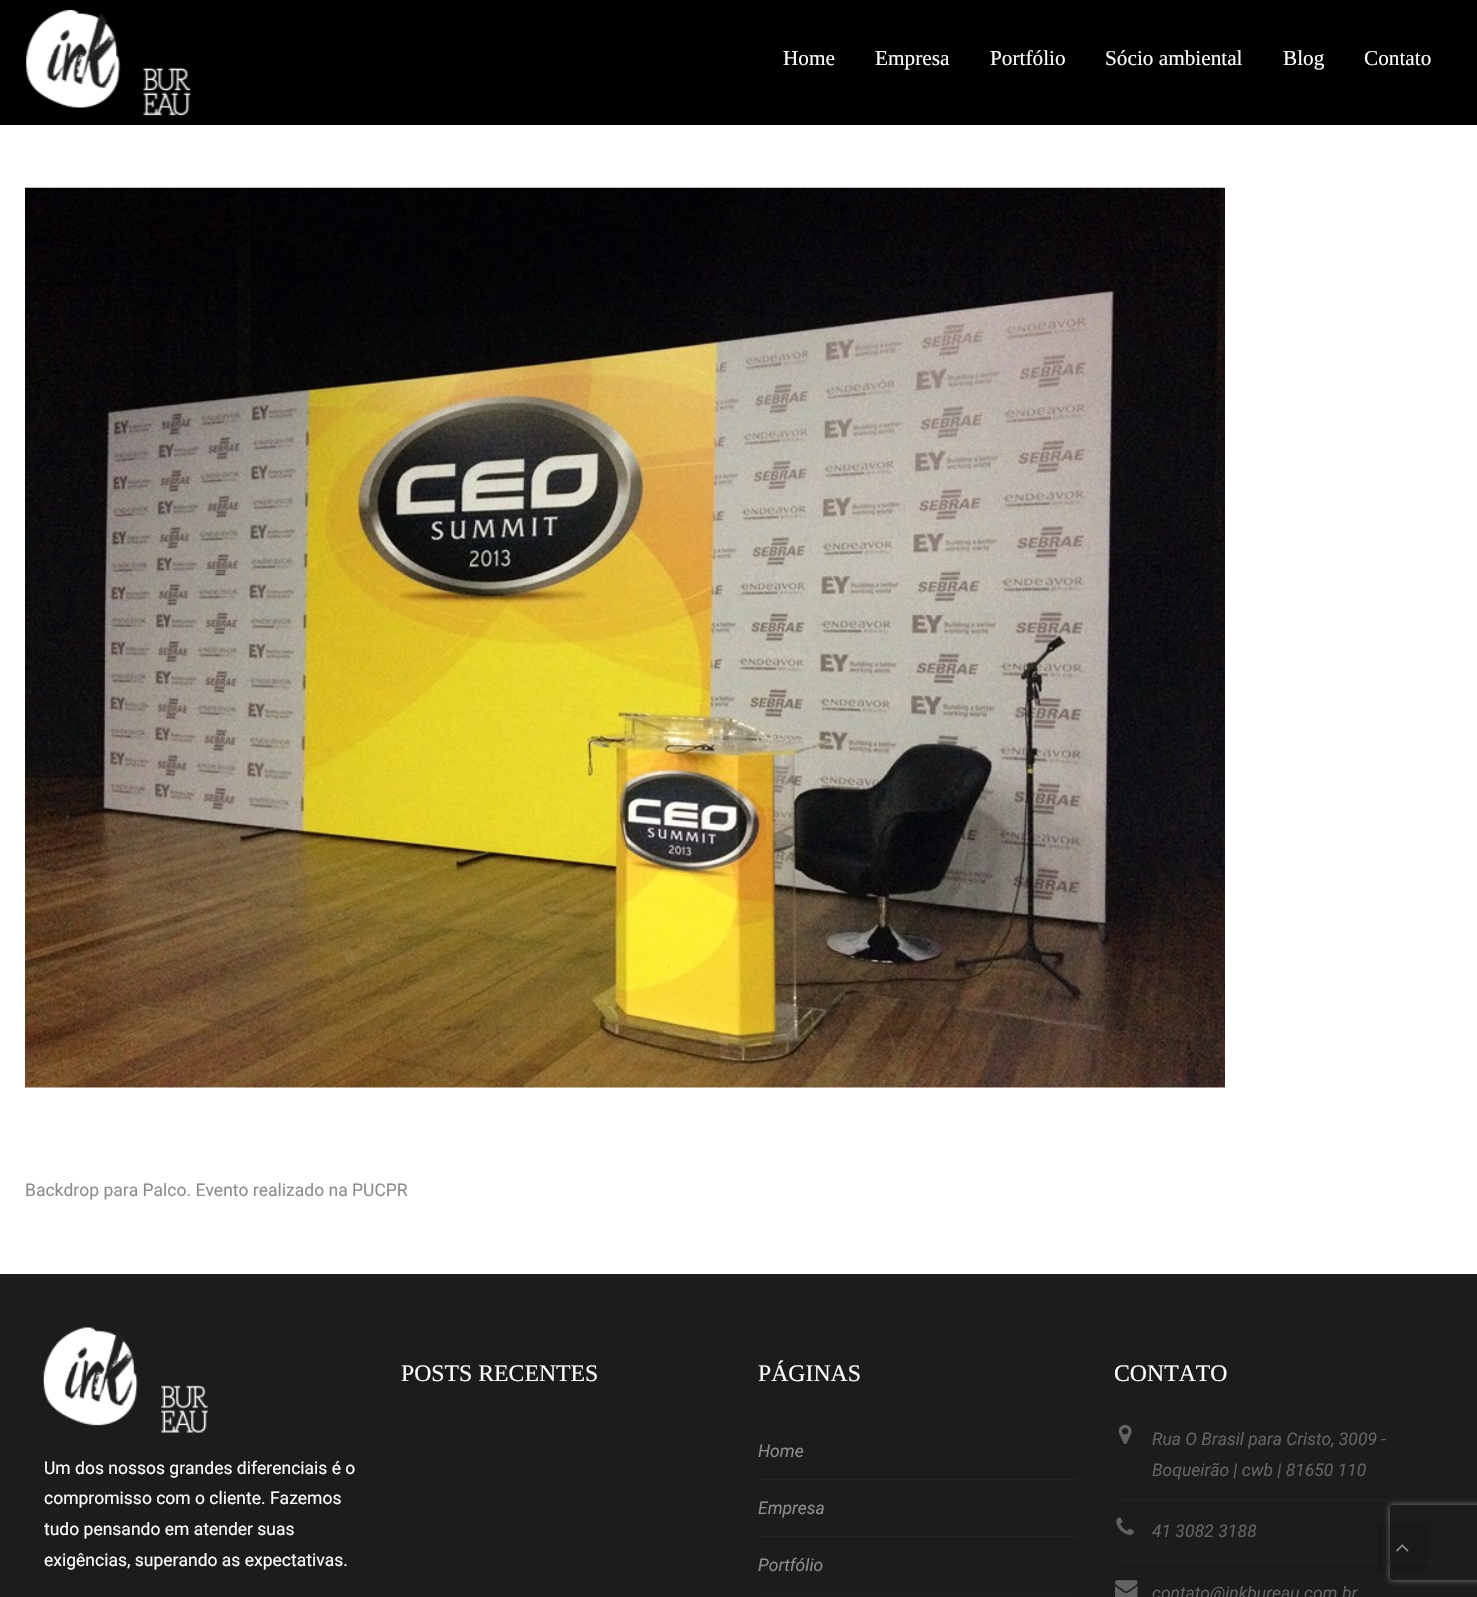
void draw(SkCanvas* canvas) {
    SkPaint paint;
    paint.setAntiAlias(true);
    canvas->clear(0xFFFFFFFF);
    paint.setColor(0xFF000000);
    canvas->drawRect(SkRect::MakeXYWH(0, 0, 1477, 125), paint);
    canvas->drawImageRect(SkImages::DeferredFromEncodedData(SkData::MakeFromFileName("img1.png")), SkRect::MakeXYWH(26, 9, 165, 107), SkSamplingOptions());
    SkFont font1(fontMgr->matchFamilyStyle("Liberation Serif", SkFontStyle::Normal()), 21.25f);
    font1.setSubpixel(true);
    paint.setColor(0xFFFFFFFF);
    canvas->drawString("Home", 783, 65, font1, paint);
    canvas->drawString("Empresa", 875, 65, font1, paint);
    canvas->drawString("Portfólio", 990, 65, font1, paint);
    canvas->drawString("Sócio ambiental", 1105, 65, font1, paint);
    canvas->drawString("Blog", 1283, 65, font1, paint);
    canvas->drawString("Contato", 1364, 65, font1, paint);
    canvas->drawImageRect(SkImages::DeferredFromEncodedData(SkData::MakeFromFileName("img2.png")), SkRect::MakeXYWH(25, 187, 1200, 901), SkSamplingOptions());
    SkFont font2(fontMgr->matchFamilyStyle("Roboto", SkFontStyle::Normal()), 17.5f);
    font2.setSubpixel(true);
    paint.setColor(0xFF8C8C8C);
    canvas->drawString("Backdrop para Palco. Evento realizado na PUCPR", 25, 1196, font2, paint);
    paint.setColor(0xFF1D1B1C);
    canvas->drawRect(SkRect::MakeXYWH(0, 1274, 1477, 323), paint);
    canvas->drawImageRect(SkImages::DeferredFromEncodedData(SkData::MakeFromFileName("img3.png")), SkRect::MakeXYWH(43, 1327, 165, 106), SkSamplingOptions());
    paint.setColor(0xFFFFFFFF);
    canvas->drawString("Um dos nossos grandes diferenciais é o", 44, 1474, font2, paint);
    canvas->drawString("compromisso com o cliente. Fazemos", 44, 1504, font2, paint);
    canvas->drawString("tudo pensando em atender suas", 44, 1535, font2, paint);
    canvas->drawString("exigências, superando as expectativas.", 44, 1566, font2, paint);
    SkFont font3(fontMgr->matchFamilyStyle("Liberation Serif", SkFontStyle::Normal()), 23.75f);
    font3.setSubpixel(true);
    canvas->drawString("POSTS RECENTES", 401, 1381, font3, paint);
    canvas->drawString("PÁGINAS", 758, 1381, font3, paint);
    paint.setColor(0xFF232323);
    canvas->drawRect(SkRect::MakeXYWH(758, 1479, 320, 1), paint);
    SkFont font4(fontMgr->matchFamilyStyle("Roboto", SkFontStyle::Italic()), 17.5f);
    font4.setSubpixel(true);
    paint.setColor(0xFF8C8C8C);
    canvas->drawString("Home", 758, 1457, font4, paint);
    paint.setColor(0xFF232323);
    canvas->drawRect(SkRect::MakeXYWH(758, 1536, 320, 1), paint);
    paint.setColor(0xFF8C8C8C);
    canvas->drawString("Empresa", 758, 1514, font4, paint);
    paint.setColor(0xFF232323);
    canvas->drawRect(SkRect::MakeXYWH(758, 1593, 320, 1), paint);
    paint.setColor(0xFF8C8C8C);
    canvas->drawString("Portfólio", 758, 1571, font4, paint);
    paint.setColor(0xFFFFFFFF);
    canvas->drawString("CONTATO", 1114, 1381, font3, paint);
    canvas->save();
    canvas->clipPath(SkPathBuilder(SkPathFillType::kEvenOdd).moveTo(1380, 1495).lineTo(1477, 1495).lineTo(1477, 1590).lineTo(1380, 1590).close().moveTo(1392.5f, 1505).lineTo(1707.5f, 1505).cubicTo(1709, 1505, 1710, 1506, 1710, 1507.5f).lineTo(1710, 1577.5f).cubicTo(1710, 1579, 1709, 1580, 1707.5f, 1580).lineTo(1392.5f, 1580).cubicTo(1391, 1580, 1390, 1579, 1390, 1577.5f).lineTo(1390, 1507.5f).cubicTo(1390, 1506, 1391, 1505, 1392.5f, 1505).close().detach(), true);
    paint.setColor(0xFF808080);
    paint.setMaskFilter(SkMaskFilter::MakeBlur(kNormal_SkBlurStyle, 3));
    canvas->drawRoundRect(SkRect::MakeXYWH(1390, 1505, 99, 75), 2.5f, 2.5f, paint);
    paint.setMaskFilter(nullptr);
    canvas->restore();
    paint.setColor(0xFF232323);
    canvas->drawRect(SkRect::MakeXYWH(1115, 1500, 278, 1), paint);
    canvas->drawImageRect(SkImages::DeferredFromEncodedData(SkData::MakeFromFileName("img4.png")), SkRect::MakeXYWH(1118, 1424, 14, 20), SkSamplingOptions());
    paint.setColor(0xFF636363);
    canvas->drawString("Rua O Brasil para Cristo, 3009 -", 1152, 1445, font4, paint);
    canvas->drawString("Boqueirão | cwb | 81650 110", 1152, 1476, font4, paint);
    paint.setColor(0xFF232323);
    canvas->drawRect(SkRect::MakeXYWH(1115, 1561, 319, 1), paint);
    canvas->drawImageRect(SkImages::DeferredFromEncodedData(SkData::MakeFromFileName("img5.png")), SkRect::MakeXYWH(1116, 1517, 18, 18), SkSamplingOptions());
    SkFont font5(fontMgr->matchFamilyStyle("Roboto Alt", SkFontStyle::Italic()), 17.5f);
    font5.setSubpixel(true);
    paint.setColor(0xFF636363);
    canvas->drawString("41 3082 3188", 1152, 1537, font5, paint);
    canvas->drawImageRect(SkImages::DeferredFromEncodedData(SkData::MakeFromFileName("img6.png")), SkRect::MakeXYWH(1115, 1580, 23, 17), SkSamplingOptions());
    canvas->drawString("contato@inkbureau.com.br", 1152, 1599, font4, paint);
    paint.setColor(0x1F000000);
    canvas->drawRoundRect(SkRect::MakeXYWH(1378, 1523, 50, 50), 5, 5, paint);
    canvas->drawImageRect(SkImages::DeferredFromEncodedData(SkData::MakeFromFileName("img7.png")), SkRect::MakeXYWH(1396, 1544, 13, 8), SkSamplingOptions());
}
